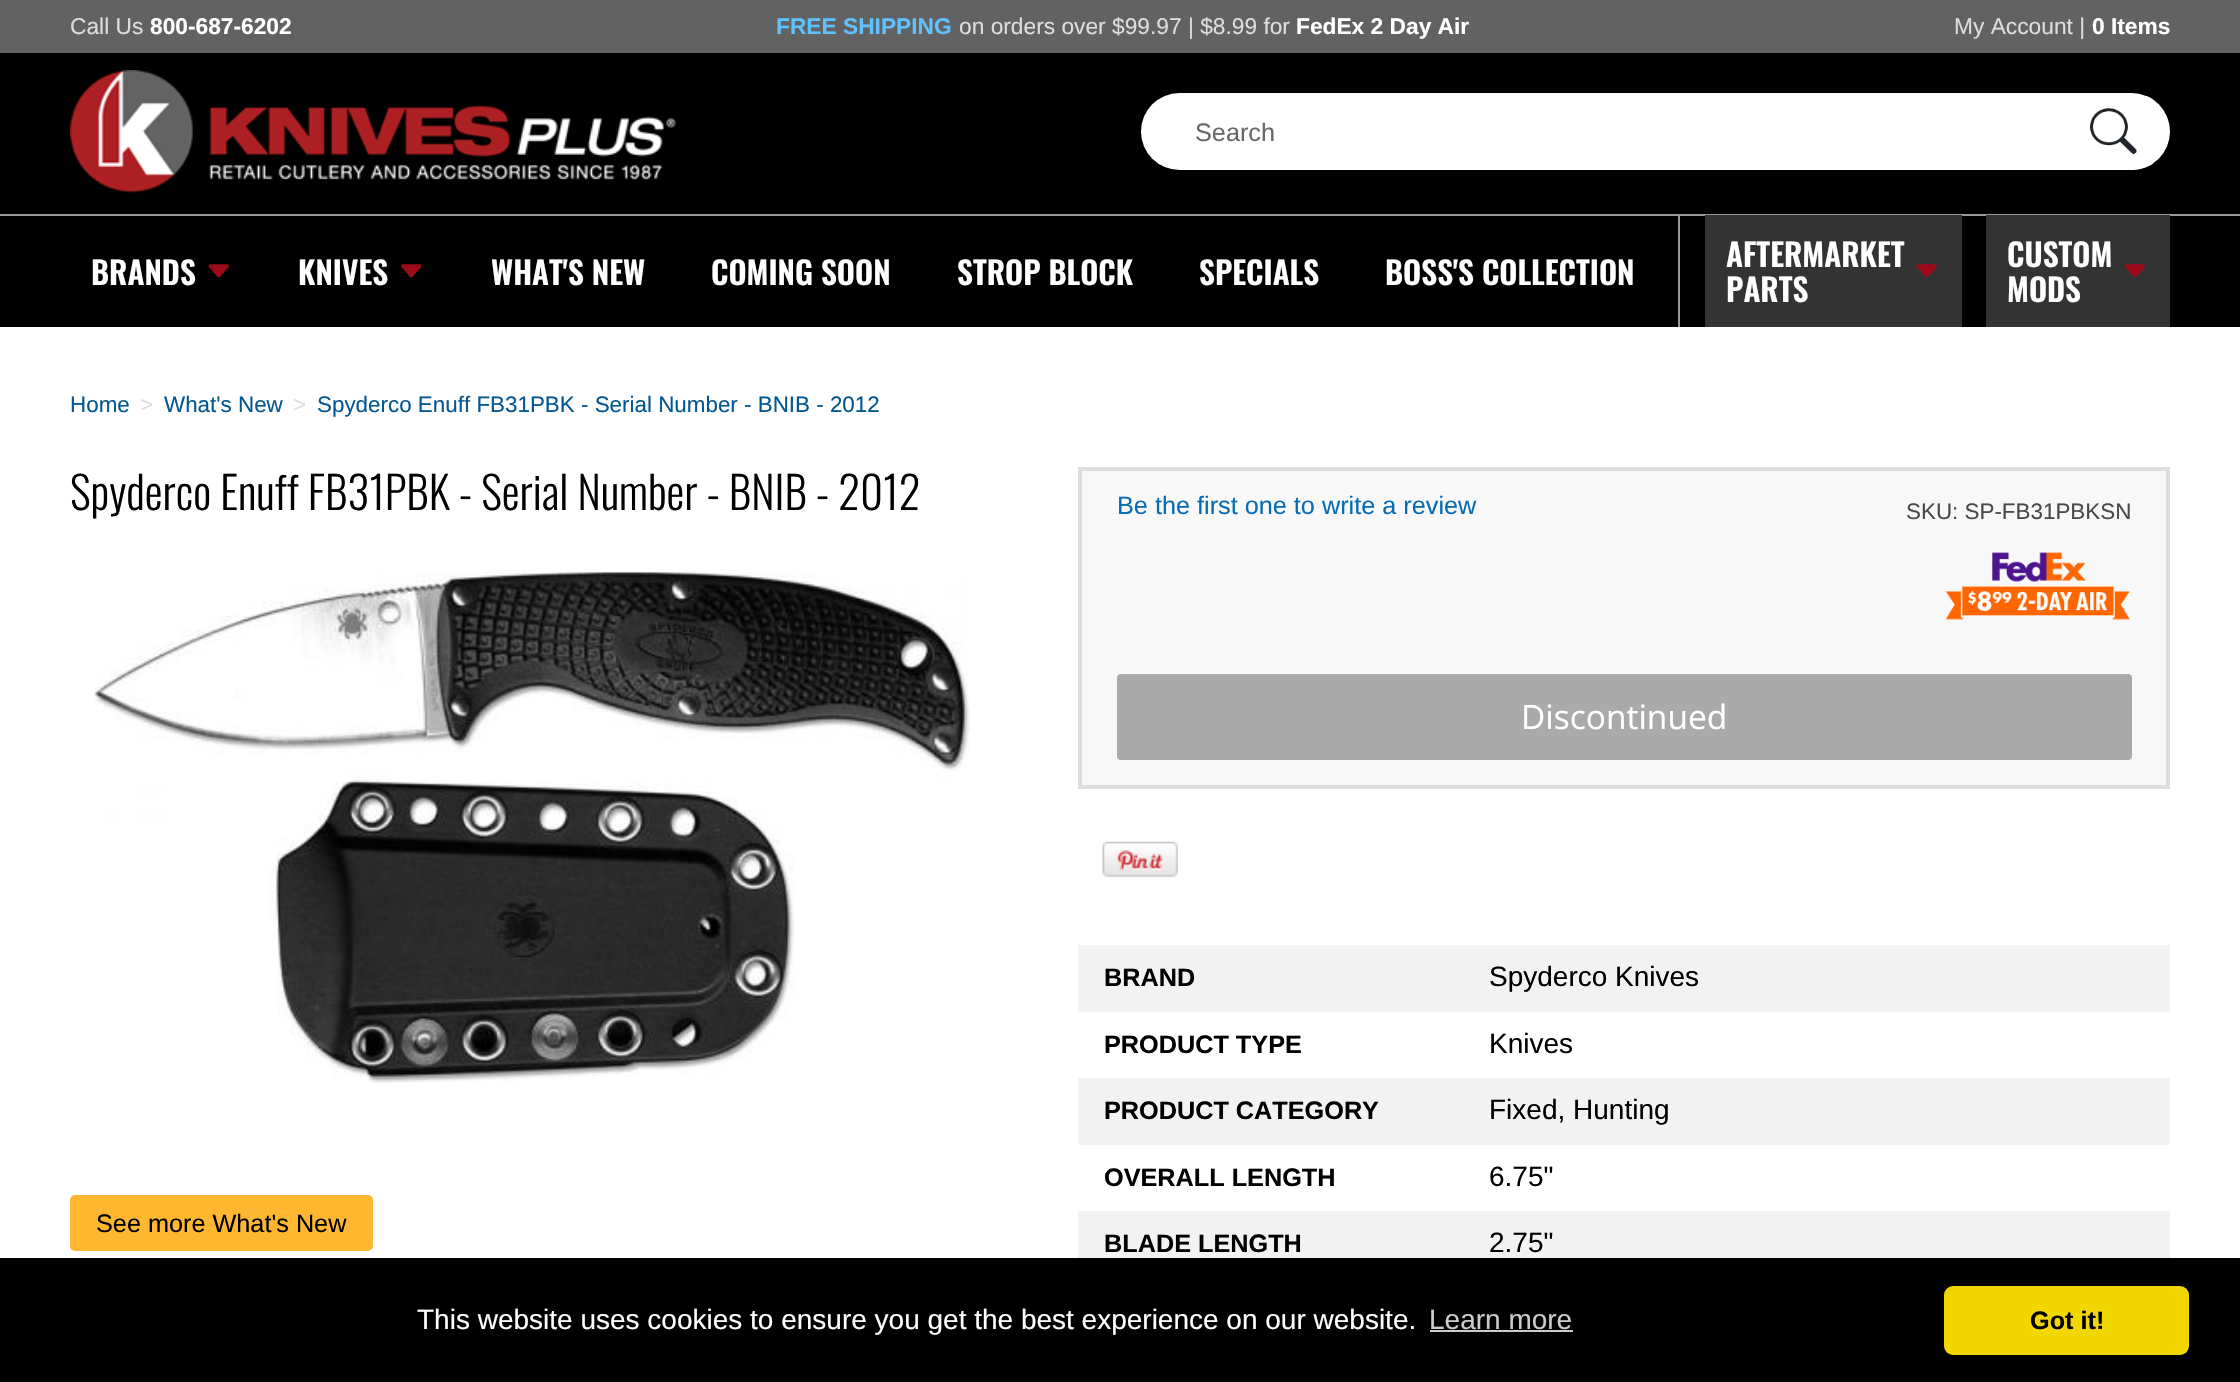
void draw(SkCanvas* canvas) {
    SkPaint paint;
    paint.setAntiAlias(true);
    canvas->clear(0xFFFFFFFF);
    paint.setColor(0xFF626262);
    canvas->drawRect(SkRect::MakeXYWH(0, 0, 2240, 53), paint);
    SkFont font1(fontMgr->matchFamilyStyle("Liberation Sans", SkFontStyle::Normal()), 22.75f);
    font1.setSubpixel(true);
    paint.setColor(0xFFDDDDDD);
    canvas->drawString("Call Us", 70, 34, font1, paint);
    SkFont font2(fontMgr->matchFamilyStyle("Liberation Sans", SkFontStyle::Bold()), 22.75f);
    font2.setSubpixel(true);
    paint.setColor(0xFFFFFFFF);
    canvas->drawString("800-687-6202", 150, 34, font2, paint);
    paint.setColor(0xFF5FC1FD);
    canvas->drawString("FREE SHIPPING", 776, 34, font2, paint);
    paint.setColor(0xFFDDDDDD);
    canvas->drawString("on orders over $99.97 | $8.99 for", 959, 34, font1, paint);
    paint.setColor(0xFFFFFFFF);
    canvas->drawString("FedEx 2 Day Air", 1296, 34, font2, paint);
    paint.setColor(0xFFDDDDDD);
    canvas->drawString("My Account |", 1954, 34, font1, paint);
    paint.setColor(0xFFFFFFFF);
    canvas->drawString("0 Items", 2092, 34, font2, paint);
    paint.setColor(0xFF000000);
    canvas->drawRect(SkRect::MakeXYWH(0, 53, 2240, 161), paint);
    canvas->drawImageRect(SkImages::DeferredFromEncodedData(SkData::MakeFromFileName("img1.png")), SkRect::MakeXYWH(70, 70, 606, 123), SkSamplingOptions());
    paint.setColor(0xFFFFFFFF);
    canvas->drawRoundRect(SkRect::MakeXYWH(1141, 93, 1029, 77), 38.5f, 38.5f, paint);
    SkFont font3(fontMgr->matchFamilyStyle("Liberation Sans", SkFontStyle::Normal()), 25.25f);
    font3.setSubpixel(true);
    paint.setColor(0xFF686868);
    canvas->drawString("Search", 1195, 141, font3, paint);
    canvas->save();
    canvas->clipPath(SkPathBuilder().moveTo(1179.5f, 93).lineTo(2131.5f, 93).cubicTo(2153, 93, 2170, 110, 2170, 131.5f).cubicTo(2170, 153, 2153, 170, 2131.5f, 170).lineTo(1179.5f, 170).cubicTo(1158, 170, 1141, 153, 1141, 131.5f).cubicTo(1141, 110, 1158, 93, 1179.5f, 93).close().detach(), true);
    paint.setColor(0xFFFFFFFF);
    canvas->drawPath(SkPathBuilder().moveTo(2076, 96).lineTo(2149, 96).cubicTo(2151, 96, 2153, 98, 2153, 100).lineTo(2153, 169).cubicTo(2153, 171, 2151, 173, 2149, 173).lineTo(2076, 173).close().detach(), paint);
    canvas->restore();
    canvas->drawImageRect(SkImages::DeferredFromEncodedData(SkData::MakeFromFileName("img2.png")), SkRect::MakeXYWH(2090, 108, 47, 46), SkSamplingOptions());
    paint.setColor(0xFF000000);
    canvas->drawRect(SkRect::MakeXYWH(0, 216, 2240, 111), paint);
    paint.setColor(0xFF999999);
    canvas->drawRect(SkRect::MakeXYWH(0, 214, 2240, 2), paint);
    SkFont font4(fontMgr->matchFamilyStyle("Oswald", SkFontStyle(600, SkFontStyle::kNormal_Width, SkFontStyle::kUpright_Slant)), 31.5f);
    font4.setSubpixel(true);
    paint.setColor(0xFFFFFFFF);
    canvas->drawString("BRANDS", 91, 285, font4, paint);
    canvas->drawImageRect(SkImages::DeferredFromEncodedData(SkData::MakeFromFileName("img3.png")), SkRect::MakeXYWH(208, 264, 21, 14), SkSamplingOptions());
    canvas->drawString("KNIVES", 298, 285, font4, paint);
    canvas->drawImageRect(SkImages::DeferredFromEncodedData(SkData::MakeFromFileName("img4.png")), SkRect::MakeXYWH(401, 264, 21, 14), SkSamplingOptions());
    canvas->drawString("WHAT'S NEW", 491, 285, font4, paint);
    canvas->drawString("COMING SOON", 711, 285, font4, paint);
    canvas->drawString("STROP BLOCK", 957, 285, font4, paint);
    canvas->drawString("SPECIALS", 1199, 285, font4, paint);
    canvas->drawString("BOSS'S COLLECTION", 1385, 285, font4, paint);
    paint.setColor(0xFF999999);
    canvas->drawRect(SkRect::MakeXYWH(1678, 215, 2, 112), paint);
    paint.setColor(0xFF333333);
    canvas->drawRect(SkRect::MakeXYWH(1705, 215, 257, 112), paint);
    paint.setColor(0xFFFFFFFF);
    canvas->drawString("AFTERMARKET", 1726, 267, font4, paint);
    canvas->drawImageRect(SkImages::DeferredFromEncodedData(SkData::MakeFromFileName("img5.png")), SkRect::MakeXYWH(1916, 264, 21, 14), SkSamplingOptions());
    canvas->drawString("PARTS", 1726, 302, font4, paint);
    paint.setColor(0xFF333333);
    canvas->drawRect(SkRect::MakeXYWH(1986, 215, 184, 112), paint);
    paint.setColor(0xFFFFFFFF);
    canvas->drawString("CUSTOM", 2007, 267, font4, paint);
    canvas->drawImageRect(SkImages::DeferredFromEncodedData(SkData::MakeFromFileName("img6.png")), SkRect::MakeXYWH(2124, 264, 22, 14), SkSamplingOptions());
    canvas->drawString("MODS", 2007, 302, font4, paint);
    SkFont font5(fontMgr->matchFamilyStyle("Liberation Sans", SkFontStyle::Normal()), 22.4f);
    font5.setSubpixel(true);
    paint.setColor(0xFF035792);
    canvas->drawString("Home", 70, 412, font5, paint);
    paint.setColor(0xFFDDDDDD);
    canvas->drawString(">", 140, 412, font5, paint);
    paint.setColor(0xFF035792);
    canvas->drawString("What's New", 164, 412, font5, paint);
    paint.setColor(0xFFDDDDDD);
    canvas->drawString(">", 293, 412, font5, paint);
    paint.setColor(0xFF035792);
    canvas->drawString("Spyderco Enuff FB31PBK - Serial Number - BNIB - 2012", 317, 412, font5, paint);
    SkFont font6(fontMgr->matchFamilyStyle("Oswald", SkFontStyle(300, SkFontStyle::kNormal_Width, SkFontStyle::kUpright_Slant)), 44.75f);
    font6.setSubpixel(true);
    paint.setColor(0xFF000000);
    canvas->drawString("Spyderco Enuff FB31PBK - Serial Number - BNIB - 2012", 70, 510, font6, paint);
    canvas->drawImageRect(SkImages::DeferredFromEncodedData(SkData::MakeFromFileName("img7.png")), SkRect::MakeXYWH(94, 572, 876, 511), SkSamplingOptions());
    paint.setColor(0xFFF8F8F8);
    canvas->drawRect(SkRect::MakeXYWH(1080, 469, 1088, 318), paint);
    paint.setStyle(SkPaint::kStroke_Style);
    paint.setStrokeWidth(4);
    paint.setColor(0xFFDDDDDD);
    canvas->drawRect(SkRect::MakeXYWH(1080, 469, 1088, 318), paint);
    paint.setStyle(SkPaint::kFill_Style);
    paint.setColor(0xFF066CB4);
    canvas->drawString("Be the first one to write a review", 1117, 514, font3, paint);
    paint.setColor(0xFF4A4A4A);
    canvas->drawString("SKU: SP-FB31PBKSN", 1906, 519, font5, paint);
    canvas->drawImageRect(SkImages::DeferredFromEncodedData(SkData::MakeFromFileName("img8.png")), SkRect::MakeXYWH(1945, 552, 186, 68), SkSamplingOptions());
    paint.setColor(0xFFAAAAAA);
    canvas->drawRoundRect(SkRect::MakeXYWH(1117, 674, 1015, 86), 4, 4, paint);
    SkFont font7(fontMgr->matchFamilyStyle("Open Sans", SkFontStyle::Normal()), 33.5f);
    font7.setSubpixel(true);
    paint.setColor(0xFFFFFFFF);
    canvas->drawString("Discontinued", 1521, 729, font7, paint);
    canvas->drawImageRect(SkImages::DeferredFromEncodedData(SkData::MakeFromFileName("img9.png")), SkRect::MakeXYWH(1102, 841, 76, 37), SkSamplingOptions());
    paint.setColor(0xFFF2F2F2);
    canvas->drawRect(SkRect::MakeXYWH(1078, 945, 1092, 67), paint);
    SkFont font8(fontMgr->matchFamilyStyle("Liberation Sans", SkFontStyle::Bold()), 25.25f);
    font8.setSubpixel(true);
    paint.setColor(0xFF000000);
    canvas->drawString("BRAND", 1104, 986, font8, paint);
    SkFont font9(fontMgr->matchFamilyStyle("Liberation Sans", SkFontStyle::Normal()), 28);
    font9.setSubpixel(true);
    canvas->drawString("Spyderco Knives", 1489, 986, font9, paint);
    canvas->drawString("PRODUCT TYPE", 1104, 1053, font8, paint);
    canvas->drawString("Knives", 1489, 1053, font9, paint);
    paint.setColor(0xFFF2F2F2);
    canvas->drawRect(SkRect::MakeXYWH(1078, 1078, 1092, 67), paint);
    paint.setColor(0xFF000000);
    canvas->drawString("PRODUCT CATEGORY", 1104, 1119, font8, paint);
    canvas->drawString("Fixed, Hunting", 1489, 1119, font9, paint);
    canvas->drawString("OVERALL LENGTH", 1104, 1186, font8, paint);
    canvas->drawString("6.75\"", 1489, 1186, font9, paint);
    paint.setColor(0xFFF2F2F2);
    canvas->drawRect(SkRect::MakeXYWH(1078, 1211, 1092, 47), paint);
    paint.setColor(0xFF000000);
    canvas->drawString("BLADE LENGTH", 1104, 1252, font8, paint);
    canvas->drawString("2.75\"", 1489, 1252, font9, paint);
    paint.setColor(0xFFFFB731);
    canvas->drawRoundRect(SkRect::MakeXYWH(70, 1195, 303, 56), 5, 5, paint);
    paint.setColor(0xFF000000);
    canvas->drawString("See more What's New", 96, 1232, font3, paint);
    canvas->drawRect(SkRect::MakeXYWH(0, 1258, 2240, 124), paint);
    paint.setColor(0xFFFFFFFF);
    canvas->drawString("This website uses cookies to ensure you get the best experience on our website.", 417, 1329, font9, paint);
    paint.setColor(0xFFCCCCCC);
    canvas->drawString("Learn more", 1429, 1329, font9, paint);
    canvas->drawRect(SkRect::MakeXYWH(1430, 1330, 143, 2), paint);
    paint.setColor(0xFFF1D600);
    canvas->drawRoundRect(SkRect::MakeXYWH(1944, 1286, 245, 69), 9, 9, paint);
    paint.setColor(0xFF000000);
    canvas->drawString("Got it!", 2030, 1329, font8, paint);
}
